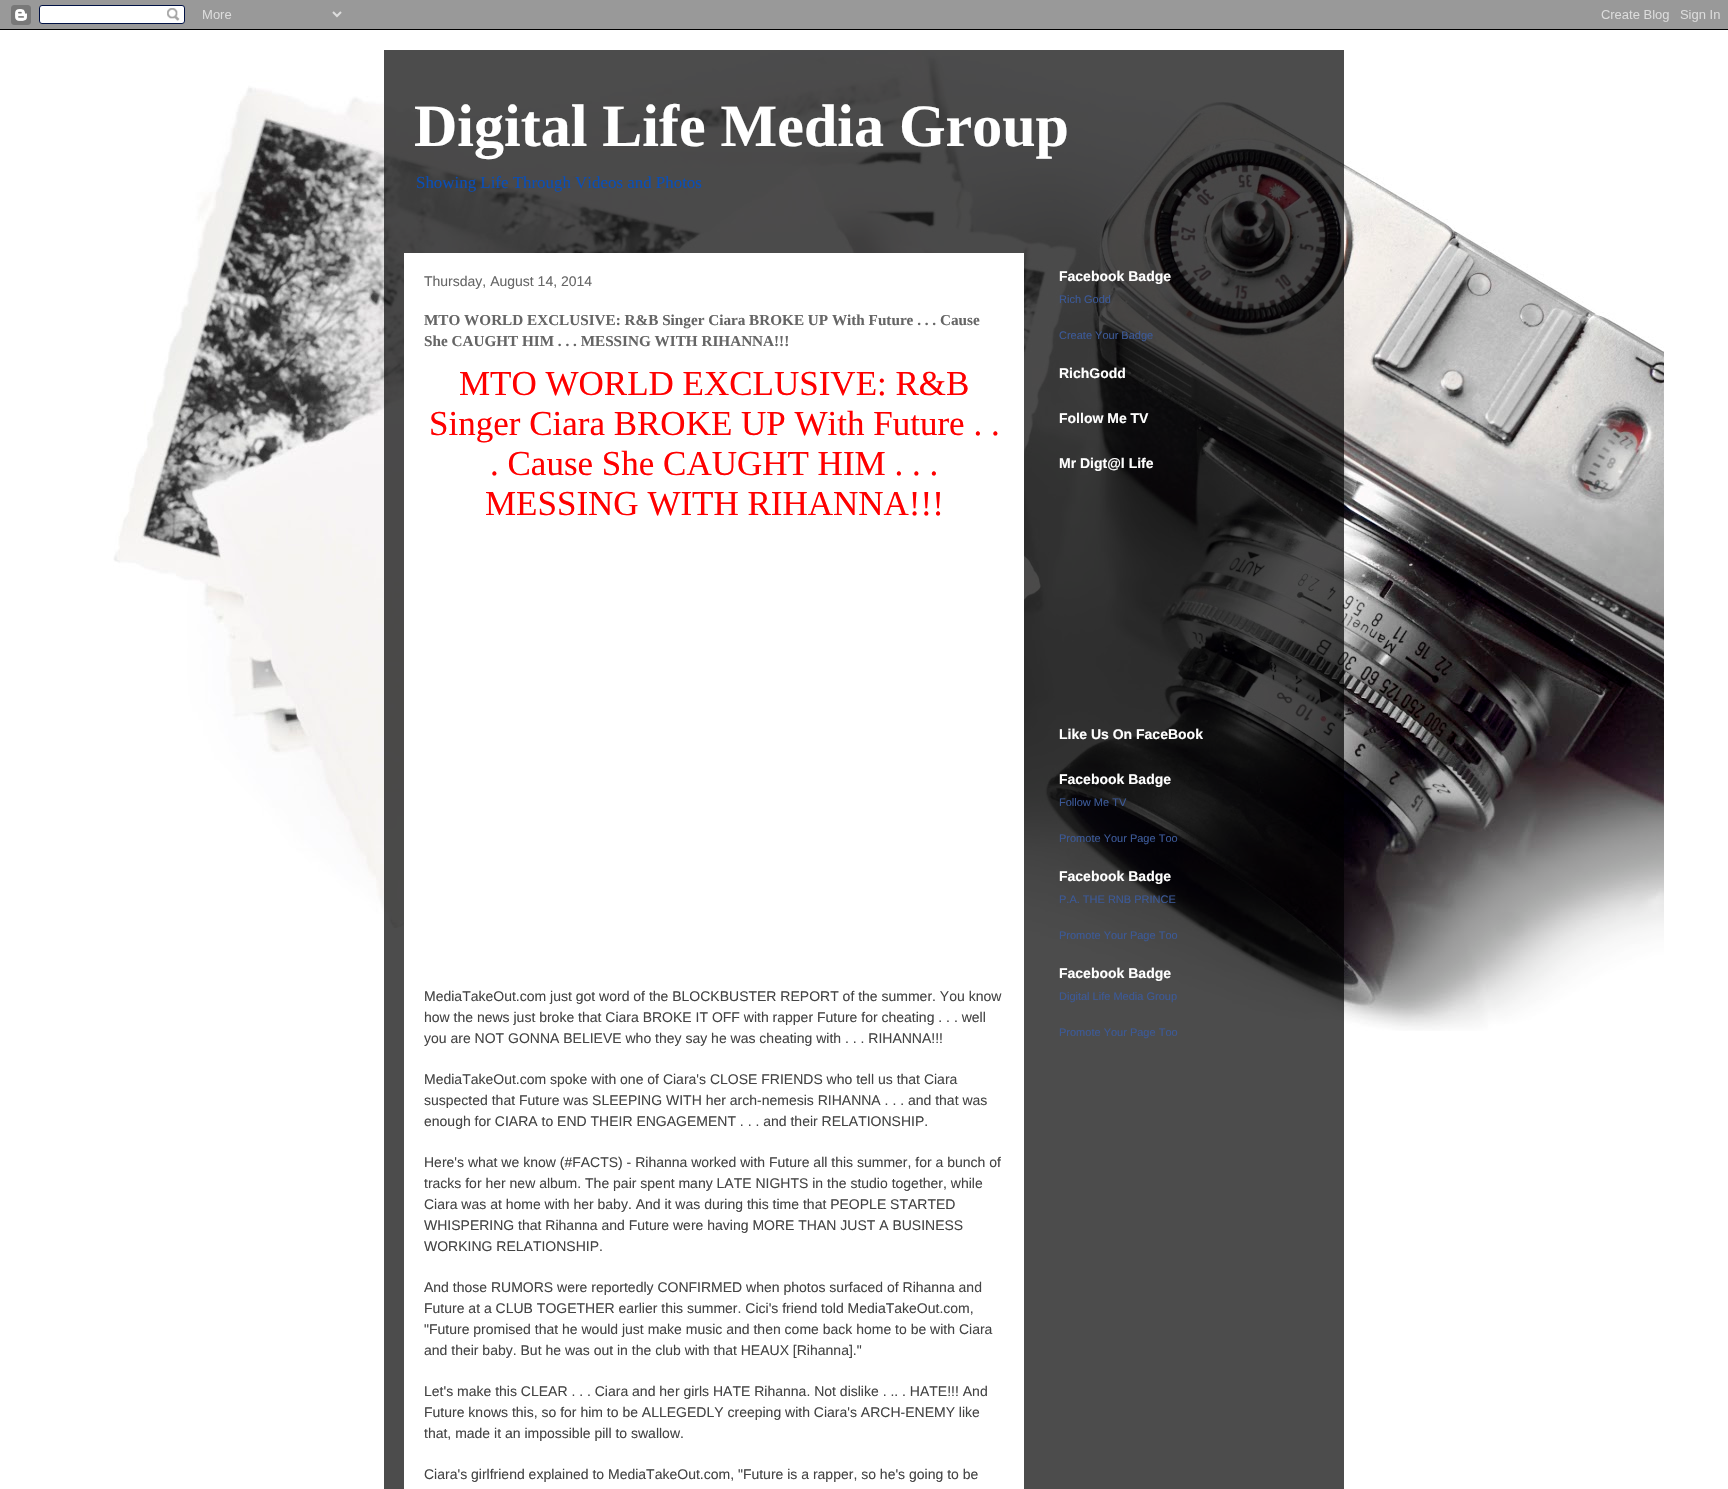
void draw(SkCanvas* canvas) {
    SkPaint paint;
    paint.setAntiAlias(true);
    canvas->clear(0xFFFFFFFF);
    canvas->drawImageRect(SkImages::DeferredFromEncodedData(SkData::MakeFromFileName("img1.png")), SkRect::MakeXYWH(113, 51, 1551, 980), SkSamplingOptions());
    canvas->drawImageRect(SkImages::DeferredFromEncodedData(SkData::MakeFromFileName("img2.png")), SkRect::MakeXYWH(0, 0, 1728, 30), SkSamplingOptions());
    paint.setColor(0xB3000000);
    canvas->drawRect(SkRect::MakeXYWH(384, 50, 960, 1439), paint);
    SkFont font1(fontMgr->matchFamilyStyle("Liberation Serif", SkFontStyle::Bold()), 60);
    font1.setSubpixel(true);
    paint.setColor(0xFFFFFFFF);
    canvas->drawString("Digital Life Media Group", 414, 146, font1, paint);
    SkFont font2(fontMgr->matchFamilyStyle("Liberation Serif", SkFontStyle::Normal()), 16.9f);
    font2.setSubpixel(true);
    paint.setColor(0xFF094EB8);
    canvas->drawString("Showing Life Through Videos and Photos", 416, 188, font2, paint);
    paint.setColor(0xFFFFFFFF);
    canvas->drawRect(SkRect::MakeXYWH(404, 253, 620, 1236), paint);
    SkFont font3(fontMgr->matchFamilyStyle("Liberation Sans", SkFontStyle::Normal()), 14);
    font3.setSubpixel(true);
    paint.setColor(0xFF666666);
    canvas->drawString("Thursday, August 14, 2014", 424, 286, font3, paint);
    SkFont font4(fontMgr->matchFamilyStyle("Liberation Serif", SkFontStyle::Bold()), 15.2f);
    font4.setSubpixel(true);
    canvas->drawString("MTO WORLD EXCLUSIVE: R&B Singer Ciara BROKE UP With Future . . . Cause", 424, 325, font4, paint);
    canvas->drawString("She CAUGHT HIM . . . MESSING WITH RIHANNA!!!", 424, 346, font4, paint);
    SkFont font5(fontMgr->matchFamilyStyle("Liberation Serif", SkFontStyle::Normal()), 35);
    font5.setSubpixel(true);
    paint.setColor(0xFFFF0000);
    canvas->drawString("MTO WORLD EXCLUSIVE: R&B", 459, 395, font5, paint);
    canvas->drawString("Singer Ciara BROKE UP With Future . .", 429, 435, font5, paint);
    canvas->drawString(". Cause She CAUGHT HIM . . .", 490, 475, font5, paint);
    canvas->drawString("MESSING WITH RIHANNA!!!", 485, 515, font5, paint);
    paint.setColor(0xFF444444);
    canvas->drawString("MediaTakeOut.com just got word of the BLOCKBUSTER REPORT of the summer. You know", 424, 1001, font3, paint);
    canvas->drawString("how the news just broke that Ciara BROKE IT OFF with rapper Future for cheating . . . well", 424, 1022, font3, paint);
    canvas->drawString("you are NOT GONNA BELIEVE who they say he was cheating with . . . RIHANNA!!!", 424, 1043, font3, paint);
    canvas->drawString("MediaTakeOut.com spoke with one of Ciara's CLOSE FRIENDS who tell us that Ciara", 424, 1084, font3, paint);
    canvas->drawString("suspected that Future was SLEEPING WITH her arch-nemesis RIHANNA . . . and that was", 424, 1105, font3, paint);
    canvas->drawString("enough for CIARA to END THEIR ENGAGEMENT . . . and their RELATIONSHIP.", 424, 1126, font3, paint);
    canvas->drawString("Here's what we know (#FACTS) - Rihanna worked with Future all this summer, for a bunch of", 424, 1167, font3, paint);
    canvas->drawString("tracks for her new album. The pair spent many LATE NIGHTS in the studio together, while", 424, 1188, font3, paint);
    canvas->drawString("Ciara was at home with her baby. And it was during this time that PEOPLE STARTED", 424, 1209, font3, paint);
    canvas->drawString("WHISPERING that Rihanna and Future were having MORE THAN JUST A BUSINESS", 424, 1230, font3, paint);
    canvas->drawString("WORKING RELATIONSHIP.", 424, 1251, font3, paint);
    canvas->drawString("And those RUMORS were reportedly CONFIRMED when photos surfaced of Rihanna and", 424, 1292, font3, paint);
    canvas->drawString("Future at a CLUB TOGETHER earlier this summer. Cici's friend told MediaTakeOut.com,", 424, 1313, font3, paint);
    canvas->drawString("\"Future promised that he would just make music and then come back home to be with Ciara", 424, 1334, font3, paint);
    canvas->drawString("and their baby. But he was out in the club with that HEAUX [Rihanna].\"", 424, 1355, font3, paint);
    canvas->drawString("Let's make this CLEAR . . . Ciara and her girls HATE Rihanna. Not dislike . .. . HATE!!! And", 424, 1396, font3, paint);
    canvas->drawString("Future knows this, so for him to be ALLEGEDLY creeping with Ciara's ARCH-ENEMY like", 424, 1417, font3, paint);
    canvas->drawString("that, made it an impossible pill to swallow.", 424, 1438, font3, paint);
    canvas->drawString("Ciara's girlfriend explained to MediaTakeOut.com, \"Future is a rapper, so he's going to be", 424, 1479, font3, paint);
    SkFont font6(fontMgr->matchFamilyStyle("Liberation Sans", SkFontStyle::Bold()), 14);
    font6.setSubpixel(true);
    paint.setColor(0xFFFFFFFF);
    canvas->drawString("Facebook Badge", 1059, 281, font6, paint);
    SkFont font7(fontMgr->matchFamilyStyle("Liberation Sans", SkFontStyle::Normal()), 11);
    font7.setSubpixel(true);
    paint.setColor(0xFF3B5998);
    canvas->drawString("Rich Godd", 1059, 303, font7, paint);
    canvas->drawString("Create Your Badge", 1059, 339, font7, paint);
    paint.setColor(0xFFFFFFFF);
    canvas->drawString("RichGodd", 1059, 378, font6, paint);
    canvas->drawString("Follow Me TV", 1059, 423, font6, paint);
    canvas->drawString("Mr Digt@l Life", 1059, 468, font6, paint);
    canvas->drawString("Like Us On FaceBook", 1059, 739, font6, paint);
    canvas->drawString("Facebook Badge", 1059, 784, font6, paint);
    paint.setColor(0xFF3B5998);
    canvas->drawString("Follow Me TV", 1059, 806, font7, paint);
    canvas->drawString("Promote Your Page Too", 1059, 842, font7, paint);
    paint.setColor(0xFFFFFFFF);
    canvas->drawString("Facebook Badge", 1059, 881, font6, paint);
    paint.setColor(0xFF3B5998);
    canvas->drawString("P.A. THE RNB PRINCE", 1059, 903, font7, paint);
    canvas->drawString("Promote Your Page Too", 1059, 939, font7, paint);
    paint.setColor(0xFFFFFFFF);
    canvas->drawString("Facebook Badge", 1059, 978, font6, paint);
    paint.setColor(0xFF3B5998);
    canvas->drawString("Digital Life Media Group", 1059, 1000, font7, paint);
    canvas->drawString("Promote Your Page Too", 1059, 1036, font7, paint);
}
